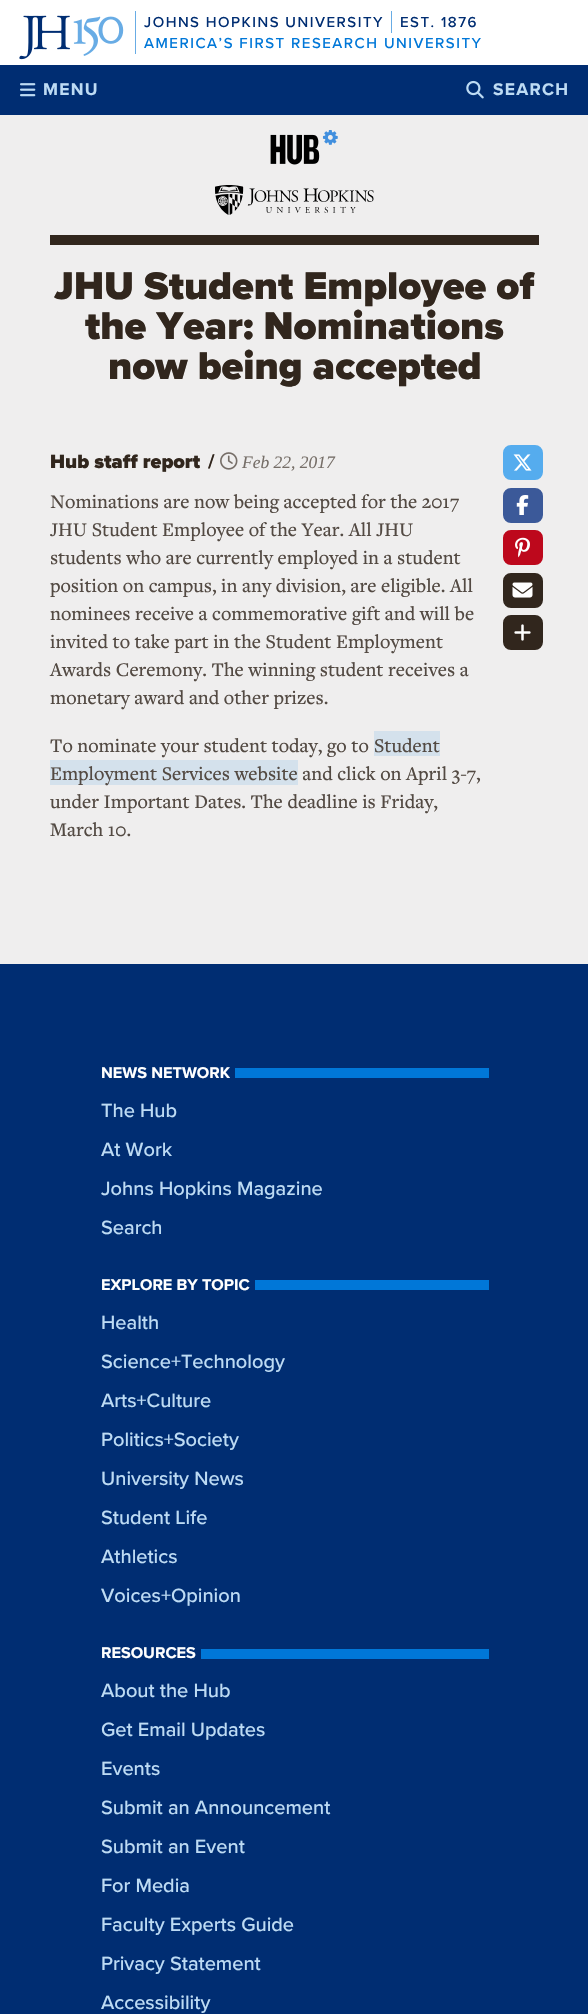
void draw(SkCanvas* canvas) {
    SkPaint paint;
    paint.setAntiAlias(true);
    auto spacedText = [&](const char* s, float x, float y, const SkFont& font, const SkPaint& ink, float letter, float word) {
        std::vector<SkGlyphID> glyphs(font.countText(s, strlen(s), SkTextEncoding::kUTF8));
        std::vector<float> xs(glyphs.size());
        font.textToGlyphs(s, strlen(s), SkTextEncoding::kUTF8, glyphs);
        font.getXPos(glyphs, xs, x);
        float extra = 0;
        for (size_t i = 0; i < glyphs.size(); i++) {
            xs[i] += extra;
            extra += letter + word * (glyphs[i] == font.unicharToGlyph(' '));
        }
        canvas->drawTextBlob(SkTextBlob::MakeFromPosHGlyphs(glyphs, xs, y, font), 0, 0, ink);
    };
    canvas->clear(0xFFEFEEEE);
    paint.setColor(0xFFFFFFFF);
    canvas->drawRect(SkRect::MakeXYWH(0, 0, 588, 65), paint);
    canvas->drawImageRect(SkImages::DeferredFromEncodedData(SkData::MakeFromFileName("img1.png")), SkRect::MakeXYWH(19, 15, 105, 45), SkSamplingOptions());
    paint.setColor(0xFF68ACE5);
    canvas->drawRect(SkRect::MakeXYWH(135, 11, 1, 43), paint);
    SkFont font1(fontMgr->matchFamilyStyle("Proxima Nova", SkFontStyle(500, SkFontStyle::kNormal_Width, SkFontStyle::kUpright_Slant)), 15);
    font1.setSubpixel(true);
    paint.setColor(0xFF002D72);
    spacedText("JOHNS HOPKINS UNIVERSITY", 144, 27, font1, paint, 1.5f, 0);
    paint.setColor(0xFF68ACE5);
    canvas->drawRect(SkRect::MakeXYWH(391, 11, 1, 22), paint);
    paint.setColor(0xFF002D72);
    spacedText("EST. 1876", 400, 27, font1, paint, 1.5f, 0);
    paint.setColor(0xFF0077D8);
    spacedText("AMERICA’S FIRST RESEARCH UNIVERSITY", 144, 48, font1, paint, 1.5f, 0);
    paint.setColor(0xFF002D72);
    canvas->drawRect(SkRect::MakeXYWH(0, 65, 588, 50), paint);
    canvas->drawImageRect(SkImages::DeferredFromEncodedData(SkData::MakeFromFileName("img2.png")), SkRect::MakeXYWH(20, 83, 16, 14), SkSamplingOptions());
    SkFont font2(fontMgr->matchFamilyStyle("Proxima Nova", SkFontStyle::Bold()), 17.5f);
    font2.setSubpixel(true);
    paint.setColor(0xFFBDDBF4);
    spacedText("MENU", 43, 95, font2, paint, 1.25f, 0);
    canvas->drawImageRect(SkImages::DeferredFromEncodedData(SkData::MakeFromFileName("img3.png")), SkRect::MakeXYWH(466, 80, 18, 19), SkSamplingOptions());
    spacedText("SEARCH", 493, 95, font2, paint, 1.25f, 0);
    paint.setColor(0xFF31261D);
    canvas->drawRect(SkRect::MakeXYWH(50, 235, 489, 10), paint);
    canvas->drawImageRect(SkImages::DeferredFromEncodedData(SkData::MakeFromFileName("img4.png")), SkRect::MakeXYWH(270, 130, 68, 35), SkSamplingOptions());
    canvas->drawImageRect(SkImages::DeferredFromEncodedData(SkData::MakeFromFileName("img5.png")), SkRect::MakeXYWH(215, 185, 159, 30), SkSamplingOptions());
    SkFont font3(fontMgr->matchFamilyStyle("Proxima Nova", SkFontStyle(900, SkFontStyle::kNormal_Width, SkFontStyle::kUpright_Slant)), 40);
    font3.setSubpixel(true);
    canvas->drawString("JHU Student Employee of", 54, 299, font3, paint);
    canvas->drawString("the Year: Nominations", 85, 339, font3, paint);
    canvas->drawString("now being accepted", 108, 379, font3, paint);
    SkFont font4(fontMgr->matchFamilyStyle("Proxima Nova", SkFontStyle(900, SkFontStyle::kNormal_Width, SkFontStyle::kUpright_Slant)), 20);
    font4.setSubpixel(true);
    canvas->drawString("Hub staff report", 50, 468, font4, paint);
    SkFont font5(fontMgr->matchFamilyStyle("Proxima Nova", SkFontStyle::Bold()), 20);
    font5.setSubpixel(true);
    canvas->drawString("/", 208, 468, font5, paint);
    canvas->drawImageRect(SkImages::DeferredFromEncodedData(SkData::MakeFromFileName("img6.png")), SkRect::MakeXYWH(220, 452, 18, 18), SkSamplingOptions());
    SkFont font6(fontMgr->matchFamilyStyle("Liberation Serif", SkFontStyle::Italic()), 17.5f);
    font6.setSubpixel(true);
    paint.setColor(0xFF766E68);
    canvas->drawString("Feb 22, 2017", 242, 468, font6, paint);
    SkFont font7(fontMgr->matchFamilyStyle("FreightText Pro", SkFontStyle(500, SkFontStyle::kNormal_Width, SkFontStyle::kUpright_Slant)), 20);
    font7.setSubpixel(true);
    paint.setColor(0xFF534A43);
    canvas->drawString("Nominations are now being accepted for the 2017", 50, 508, font7, paint);
    canvas->drawString("JHU Student Employee of the Year. All JHU", 50, 536, font7, paint);
    canvas->drawString("students who are currently employed in a student", 50, 564, font7, paint);
    canvas->drawString("position on campus, in any division, are eligible. All", 50, 592, font7, paint);
    canvas->drawString("nominees receive a commemorative gift and will be", 50, 620, font7, paint);
    canvas->drawString("invited to take part in the Student Employment", 50, 648, font7, paint);
    canvas->drawString("Awards Ceremony. The winning student receives a", 50, 676, font7, paint);
    canvas->drawString("monetary award and other prizes.", 50, 704, font7, paint);
    canvas->drawString("To nominate your student today, go to", 50, 752, font7, paint);
    paint.setColor(0xFFD4E1EC);
    canvas->drawRect(SkRect::MakeXYWH(374, 731, 66, 25), paint);
    paint.setColor(0xFF534A43);
    canvas->drawString("Student", 374, 752, font7, paint);
    paint.setColor(0xFFD4E1EC);
    canvas->drawRect(SkRect::MakeXYWH(50, 760, 248, 25), paint);
    paint.setColor(0xFF534A43);
    canvas->drawString("Employment Services website and click on April 3-7,", 50, 780, font7, paint);
    canvas->drawString("under Important Dates. The deadline is Friday,", 50, 808, font7, paint);
    canvas->drawString("March 10.", 50, 836, font7, paint);
    paint.setColor(0xFF55ACEE);
    canvas->drawRoundRect(SkRect::MakeXYWH(504.5f, 446.5f, 37, 32), 6.5f, 6.5f, paint);
    paint.setStyle(SkPaint::kStroke_Style);
    paint.setStrokeWidth(3);
    canvas->drawRoundRect(SkRect::MakeXYWH(504.5f, 446.5f, 37, 32), 6.5f, 6.5f, paint);
    canvas->drawImageRect(SkImages::DeferredFromEncodedData(SkData::MakeFromFileName("img7.png")), SkRect::MakeXYWH(513, 454, 19, 17), SkSamplingOptions());
    paint.setStyle(SkPaint::kFill_Style);
    paint.setColor(0xFF3B5999);
    canvas->drawRoundRect(SkRect::MakeXYWH(504.5f, 489.5f, 37, 32), 6.5f, 6.5f, paint);
    paint.setStyle(SkPaint::kStroke_Style);
    canvas->drawRoundRect(SkRect::MakeXYWH(504.5f, 489.5f, 37, 32), 6.5f, 6.5f, paint);
    canvas->drawImageRect(SkImages::DeferredFromEncodedData(SkData::MakeFromFileName("img8.png")), SkRect::MakeXYWH(516, 495, 13, 20), SkSamplingOptions());
    paint.setStyle(SkPaint::kFill_Style);
    paint.setColor(0xFFBD081C);
    canvas->drawRoundRect(SkRect::MakeXYWH(504.5f, 531.5f, 37, 32), 6.5f, 6.5f, paint);
    paint.setStyle(SkPaint::kStroke_Style);
    canvas->drawRoundRect(SkRect::MakeXYWH(504.5f, 531.5f, 37, 32), 6.5f, 6.5f, paint);
    canvas->drawImageRect(SkImages::DeferredFromEncodedData(SkData::MakeFromFileName("img9.png")), SkRect::MakeXYWH(515, 537, 15, 21), SkSamplingOptions());
    paint.setStyle(SkPaint::kFill_Style);
    paint.setColor(0xFF31261D);
    canvas->drawRoundRect(SkRect::MakeXYWH(504.5f, 574.5f, 37, 32), 6.5f, 6.5f, paint);
    paint.setStyle(SkPaint::kStroke_Style);
    canvas->drawRoundRect(SkRect::MakeXYWH(504.5f, 574.5f, 37, 32), 6.5f, 6.5f, paint);
    canvas->drawImageRect(SkImages::DeferredFromEncodedData(SkData::MakeFromFileName("img10.png")), SkRect::MakeXYWH(512, 582, 21, 16), SkSamplingOptions());
    paint.setStyle(SkPaint::kFill_Style);
    canvas->drawRoundRect(SkRect::MakeXYWH(504.5f, 616.5f, 37, 32), 6.5f, 6.5f, paint);
    paint.setStyle(SkPaint::kStroke_Style);
    canvas->drawRoundRect(SkRect::MakeXYWH(504.5f, 616.5f, 37, 32), 6.5f, 6.5f, paint);
    canvas->drawImageRect(SkImages::DeferredFromEncodedData(SkData::MakeFromFileName("img11.png")), SkRect::MakeXYWH(514, 624, 17, 17), SkSamplingOptions());
    paint.setStyle(SkPaint::kFill_Style);
    paint.setColor(0xFF002D72);
    canvas->drawRect(SkRect::MakeXYWH(0, 964, 588, 1050), paint);
    SkFont font8(fontMgr->matchFamilyStyle("Proxima Nova", SkFontStyle::Bold()), 16.25f);
    font8.setSubpixel(true);
    paint.setColor(0xFFFFFFFF);
    canvas->drawString("NEWS NETWORK", 101, 1078, font8, paint);
    paint.setColor(0xFF0077D8);
    canvas->drawRect(SkRect::MakeXYWH(235, 1068, 254, 10), paint);
    SkFont font9(fontMgr->matchFamilyStyle("Proxima Nova", SkFontStyle(500, SkFontStyle::kNormal_Width, SkFontStyle::kUpright_Slant)), 20);
    font9.setSubpixel(true);
    paint.setColor(0xFFBDDBF4);
    canvas->drawString("The Hub", 101, 1117, font9, paint);
    canvas->drawString("At Work", 101, 1156, font9, paint);
    canvas->drawString("Johns Hopkins Magazine", 101, 1195, font9, paint);
    canvas->drawString("Search", 101, 1234, font9, paint);
    paint.setColor(0xFFFFFFFF);
    canvas->drawString("EXPLORE BY TOPIC", 101, 1290, font8, paint);
    paint.setColor(0xFF0077D8);
    canvas->drawRect(SkRect::MakeXYWH(255, 1280, 234, 10), paint);
    paint.setColor(0xFFBDDBF4);
    canvas->drawString("Health", 101, 1329, font9, paint);
    canvas->drawString("Science+Technology", 101, 1368, font9, paint);
    canvas->drawString("Arts+Culture", 101, 1407, font9, paint);
    canvas->drawString("Politics+Society", 101, 1446, font9, paint);
    canvas->drawString("University News", 101, 1485, font9, paint);
    canvas->drawString("Student Life", 101, 1524, font9, paint);
    canvas->drawString("Athletics", 101, 1563, font9, paint);
    canvas->drawString("Voices+Opinion", 101, 1602, font9, paint);
    paint.setColor(0xFFFFFFFF);
    canvas->drawString("RESOURCES", 101, 1658, font8, paint);
    paint.setColor(0xFF0077D8);
    canvas->drawRect(SkRect::MakeXYWH(201, 1649, 288, 10), paint);
    paint.setColor(0xFFBDDBF4);
    canvas->drawString("About the Hub", 101, 1697, font9, paint);
    canvas->drawString("Get Email Updates", 101, 1736, font9, paint);
    canvas->drawString("Events", 101, 1775, font9, paint);
    canvas->drawString("Submit an Announcement", 101, 1814, font9, paint);
    canvas->drawString("Submit an Event", 101, 1853, font9, paint);
    canvas->drawString("For Media", 101, 1892, font9, paint);
    canvas->drawString("Faculty Experts Guide", 101, 1931, font9, paint);
    canvas->drawString("Privacy Statement", 101, 1970, font9, paint);
    canvas->drawString("Accessibility", 101, 2009, font9, paint);
}
